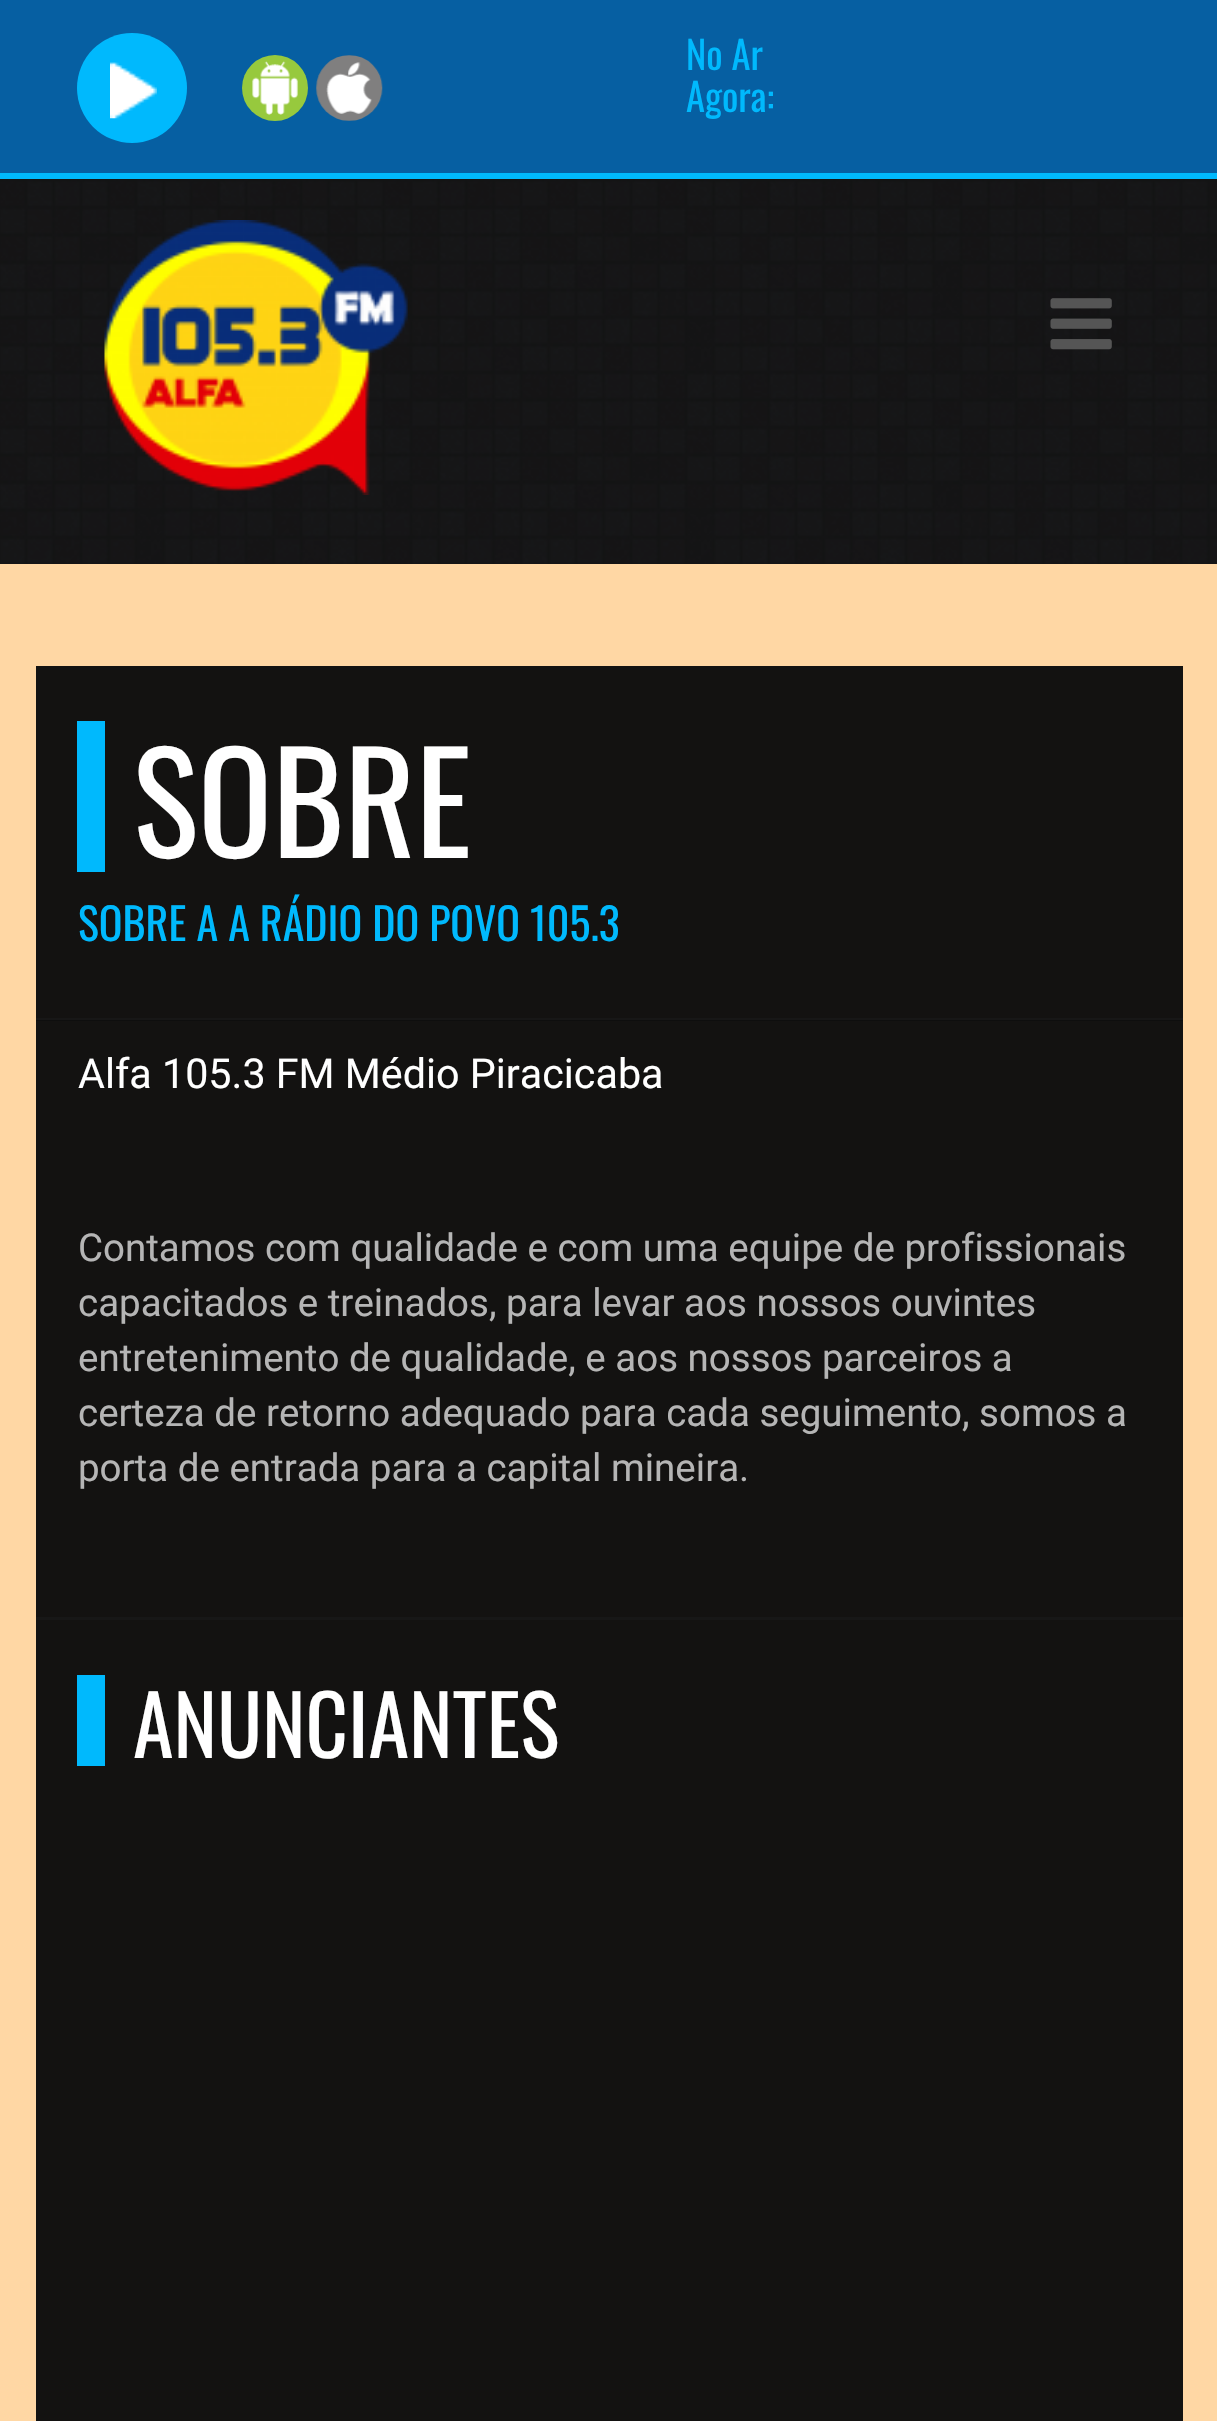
void draw(SkCanvas* canvas) {
    SkPaint paint;
    paint.setAntiAlias(true);
    canvas->clear(0xFFFFD7A4);
    paint.setColor(0xFF065FA2);
    canvas->drawRect(SkRect::MakeXYWH(0, 0, 1217, 173), paint);
    paint.setColor(0xFF00B9FD);
    canvas->drawRect(SkRect::MakeXYWH(0, 173, 1217, 6), paint);
    canvas->drawCircle(132, 88, 55, paint);
    canvas->drawImageRect(SkImages::DeferredFromEncodedData(SkData::MakeFromFileName("img1.png")), SkRect::MakeXYWH(110, 62, 47, 57), SkSamplingOptions());
    canvas->drawImageRect(SkImages::DeferredFromEncodedData(SkData::MakeFromFileName("img2.png")), SkRect::MakeXYWH(242, 55, 66, 66), SkSamplingOptions());
    canvas->drawImageRect(SkImages::DeferredFromEncodedData(SkData::MakeFromFileName("img3.png")), SkRect::MakeXYWH(316, 55, 67, 66), SkSamplingOptions());
    SkFont font1(fontMgr->matchFamilyStyle("Oswald", SkFontStyle::Normal()), 38.5f);
    font1.setSubpixel(true);
    canvas->drawString("No Ar", 686, 70, font1, paint);
    canvas->drawString("Agora:", 686, 112, font1, paint);
    canvas->drawImageRect(SkImages::DeferredFromEncodedData(SkData::MakeFromFileName("img4.png")), SkRect::MakeXYWH(0, 179, 1217, 385), SkSamplingOptions());
    canvas->drawImageRect(SkImages::DeferredFromEncodedData(SkData::MakeFromFileName("img5.png")), SkRect::MakeXYWH(104, 220, 304, 275), SkSamplingOptions());
    canvas->drawImageRect(SkImages::DeferredFromEncodedData(SkData::MakeFromFileName("img6.png")), SkRect::MakeXYWH(1050, 298, 62, 52), SkSamplingOptions());
    paint.setColor(0xFF131211);
    canvas->drawRect(SkRect::MakeXYWH(36, 666, 1147, 352), paint);
    paint.setColor(0xFF171717);
    canvas->drawRect(SkRect::MakeXYWH(36, 1018, 1147, 2), paint);
    paint.setColor(0xFF0E0E0E);
    canvas->drawRect(SkRect::MakeXYWH(36, 1020, 1147, 1), paint);
    paint.setColor(0xFF00B9FD);
    canvas->drawRect(SkRect::MakeXYWH(77, 721, 28, 151), paint);
    SkFont font2(fontMgr->matchFamilyStyle("Oswald", SkFontStyle::Normal()), 137.5f);
    font2.setSubpixel(true);
    paint.setColor(0xFFFFFFFF);
    canvas->drawString("SOBRE", 133, 858, font2, paint);
    SkFont font3(fontMgr->matchFamilyStyle("Oswald", SkFontStyle::Normal()), 44);
    font3.setSubpixel(true);
    paint.setColor(0xFF00B9FD);
    canvas->drawString("SOBRE A A RÁDIO DO POVO 105.3", 78, 941, font3, paint);
    paint.setColor(0xFF171717);
    canvas->drawRect(SkRect::MakeXYWH(36, 1617, 1147, 3), paint);
    paint.setColor(0xFF131211);
    canvas->drawRect(SkRect::MakeXYWH(36, 1021, 1147, 596), paint);
    SkFont font4(fontMgr->matchFamilyStyle("Roboto", SkFontStyle::Normal()), 41.25f);
    font4.setSubpixel(true);
    paint.setColor(0xFFFFFFFF);
    canvas->drawString("Alfa 105.3 FM Médio Piracicaba", 78, 1088, font4, paint);
    SkFont font5(fontMgr->matchFamilyStyle("Roboto", SkFontStyle::Normal()), 38.5f);
    font5.setSubpixel(true);
    paint.setColor(0xFFB5B5B5);
    canvas->drawString("Contamos com qualidade e com uma equipe de profissionais", 78, 1261, font5, paint);
    canvas->drawString("capacitados e treinados, para levar aos nossos ouvintes", 78, 1316, font5, paint);
    canvas->drawString("entretenimento de qualidade, e aos nossos parceiros a", 78, 1371, font5, paint);
    canvas->drawString("certeza de retorno adequado para cada seguimento, somos a", 78, 1426, font5, paint);
    canvas->drawString("porta de entrada para a capital mineira.", 78, 1481, font5, paint);
    paint.setColor(0xFF131211);
    canvas->drawRect(SkRect::MakeXYWH(36, 1620, 1147, 801), paint);
    paint.setColor(0xFF00B9FD);
    canvas->drawRect(SkRect::MakeXYWH(77, 1675, 28, 91), paint);
    SkFont font6(fontMgr->matchFamilyStyle("Oswald", SkFontStyle::Normal()), 82.5f);
    font6.setSubpixel(true);
    paint.setColor(0xFFFFFFFF);
    canvas->drawString("ANUNCIANTES", 133, 1758, font6, paint);
}
